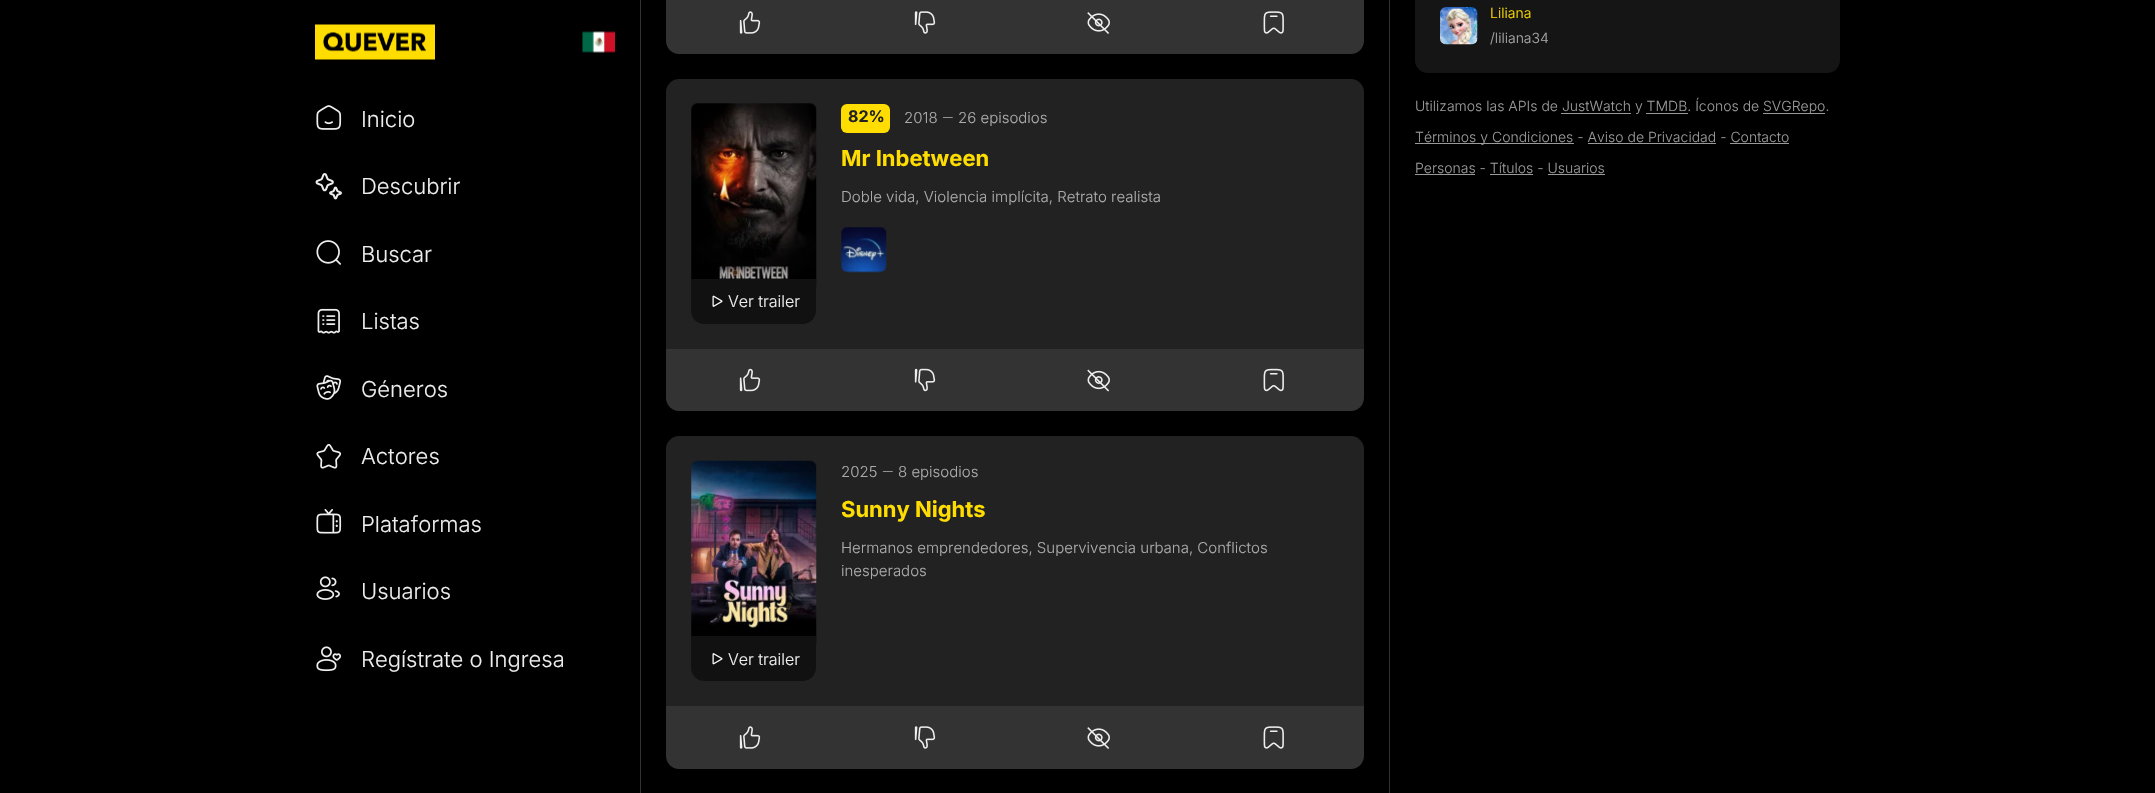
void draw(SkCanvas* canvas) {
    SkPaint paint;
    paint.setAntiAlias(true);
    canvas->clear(0xFF000000);
    paint.setColor(0xFF151515);
    canvas->drawRoundRect(SkRect::MakeXYWH(1415, -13, 425, 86), 13, 13, paint);
    canvas->drawImageRect(SkImages::DeferredFromEncodedData(SkData::MakeFromFileName("img1.png")), SkRect::MakeXYWH(1440, 7, 38, 38), SkSamplingOptions());
    SkFont font1(fontMgr->matchFamilyStyle("Inter", SkFontStyle(300, SkFontStyle::kNormal_Width, SkFontStyle::kUpright_Slant)), 14);
    font1.setSubpixel(true);
    paint.setColor(0xFFFFDD00);
    canvas->drawString("Liliana", 1490, 18, font1, paint);
    paint.setColor(0xFFAAAAAA);
    canvas->drawString("/liliana34", 1490, 43, font1, paint);
    paint.setColor(0xFF999999);
    canvas->drawString("Utilizamos las APIs de JustWatch y TMDB. Íconos de", 1415, 111, font1, paint);
    canvas->drawRect(SkRect::MakeXYWH(1763, 113, 62, 1), paint);
    canvas->drawString("SVGRepo.", 1763, 111, font1, paint);
    canvas->drawRect(SkRect::MakeXYWH(1561, 113, 70, 1), paint);
    canvas->drawRect(SkRect::MakeXYWH(1646, 113, 42, 1), paint);
    canvas->drawRect(SkRect::MakeXYWH(1415, 143, 159, 1), paint);
    canvas->drawString("Términos y Condiciones - Aviso de Privacidad - Contacto", 1415, 142, font1, paint);
    canvas->drawRect(SkRect::MakeXYWH(1588, 143, 128, 1), paint);
    canvas->drawRect(SkRect::MakeXYWH(1730, 143, 59, 1), paint);
    canvas->drawString("Personas - Títulos - Usuarios", 1415, 173, font1, paint);
    canvas->drawRect(SkRect::MakeXYWH(1415, 174, 60, 1), paint);
    canvas->drawRect(SkRect::MakeXYWH(1490, 174, 43, 1), paint);
    canvas->drawRect(SkRect::MakeXYWH(1548, 174, 57, 1), paint);
    canvas->drawImageRect(SkImages::DeferredFromEncodedData(SkData::MakeFromFileName("img2.png")), SkRect::MakeXYWH(315, 24, 120, 36), SkSamplingOptions());
    canvas->drawImageRect(SkImages::DeferredFromEncodedData(SkData::MakeFromFileName("img3.png")), SkRect::MakeXYWH(582, 31, 33, 22), SkSamplingOptions());
    canvas->drawImageRect(SkImages::DeferredFromEncodedData(SkData::MakeFromFileName("img4.png")), SkRect::MakeXYWH(316, 105, 26, 25), SkSamplingOptions());
    SkFont font2(fontMgr->matchFamilyStyle("Inter", SkFontStyle(300, SkFontStyle::kNormal_Width, SkFontStyle::kUpright_Slant)), 22);
    font2.setSubpixel(true);
    paint.setColor(0xFFEEEEEE);
    canvas->drawString("Inicio", 361, 127, font2, paint);
    canvas->drawImageRect(SkImages::DeferredFromEncodedData(SkData::MakeFromFileName("img5.png")), SkRect::MakeXYWH(315, 173, 27, 27), SkSamplingOptions());
    canvas->drawString("Descubrir", 361, 194, font2, paint);
    canvas->drawImageRect(SkImages::DeferredFromEncodedData(SkData::MakeFromFileName("img6.png")), SkRect::MakeXYWH(316, 240, 25, 25), SkSamplingOptions());
    canvas->drawString("Buscar", 361, 262, font2, paint);
    canvas->drawImageRect(SkImages::DeferredFromEncodedData(SkData::MakeFromFileName("img7.png")), SkRect::MakeXYWH(317, 308, 23, 26), SkSamplingOptions());
    canvas->drawString("Listas", 361, 329, font2, paint);
    canvas->drawImageRect(SkImages::DeferredFromEncodedData(SkData::MakeFromFileName("img8.png")), SkRect::MakeXYWH(316, 375, 26, 25), SkSamplingOptions());
    canvas->drawString("Géneros", 361, 397, font2, paint);
    canvas->drawImageRect(SkImages::DeferredFromEncodedData(SkData::MakeFromFileName("img9.png")), SkRect::MakeXYWH(316, 443, 26, 26), SkSamplingOptions());
    canvas->drawString("Actores", 361, 464, font2, paint);
    canvas->drawImageRect(SkImages::DeferredFromEncodedData(SkData::MakeFromFileName("img10.png")), SkRect::MakeXYWH(316, 509, 26, 25), SkSamplingOptions());
    canvas->drawString("Plataformas", 361, 532, font2, paint);
    canvas->drawImageRect(SkImages::DeferredFromEncodedData(SkData::MakeFromFileName("img11.png")), SkRect::MakeXYWH(316, 576, 24, 24), SkSamplingOptions());
    canvas->drawString("Usuarios", 361, 599, font2, paint);
    canvas->drawImageRect(SkImages::DeferredFromEncodedData(SkData::MakeFromFileName("img12.png")), SkRect::MakeXYWH(316, 646, 26, 26), SkSamplingOptions());
    canvas->drawString("Regístrate o Ingresa", 361, 667, font2, paint);
    paint.setColor(0xFF333333);
    canvas->drawRect(SkRect::MakeXYWH(1389, 0, 1, 793), paint);
    canvas->drawRect(SkRect::MakeXYWH(640, 0, 1, 793), paint);
    canvas->drawPath(SkPathBuilder().moveTo(666, -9).lineTo(1364, -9).lineTo(1364, 41).cubicTo(1364, 48, 1358, 54, 1351, 54).lineTo(679, 54).cubicTo(672, 54, 666, 48, 666, 41).close().detach(), paint);
    canvas->drawImageRect(SkImages::DeferredFromEncodedData(SkData::MakeFromFileName("img13.png")), SkRect::MakeXYWH(739, 11, 22, 23), SkSamplingOptions());
    canvas->drawImageRect(SkImages::DeferredFromEncodedData(SkData::MakeFromFileName("img14.png")), SkRect::MakeXYWH(914, 11, 22, 23), SkSamplingOptions());
    canvas->drawImageRect(SkImages::DeferredFromEncodedData(SkData::MakeFromFileName("img15.png")), SkRect::MakeXYWH(1087, 12, 23, 22), SkSamplingOptions());
    canvas->drawImageRect(SkImages::DeferredFromEncodedData(SkData::MakeFromFileName("img16.png")), SkRect::MakeXYWH(1263, 11, 21, 23), SkSamplingOptions());
    paint.setColor(0xFF222222);
    canvas->drawPath(SkPathBuilder().moveTo(679, 79).lineTo(1351, 79).cubicTo(1358, 79, 1364, 85, 1364, 92).lineTo(1364, 349).lineTo(666, 349).lineTo(666, 92).cubicTo(666, 85, 672, 79, 679, 79).close().detach(), paint);
    paint.setColor(0xFFFFDD00);
    canvas->drawRoundRect(SkRect::MakeXYWH(841, 104, 49, 29), 6, 6, paint);
    SkFont font3(fontMgr->matchFamilyStyle("Inter", SkFontStyle::Bold()), 16);
    font3.setSubpixel(true);
    paint.setColor(0xFF222222);
    canvas->drawString("82%", 848, 122, font3, paint);
    SkFont font4(fontMgr->matchFamilyStyle("Inter", SkFontStyle(300, SkFontStyle::kNormal_Width, SkFontStyle::kUpright_Slant)), 15);
    font4.setSubpixel(true);
    paint.setColor(0xFFAAAAAA);
    canvas->drawString("2018", 904, 123, font4, paint);
    SkFont font5(fontMgr->matchFamilyStyle("Roboto", SkFontStyle(300, SkFontStyle::kNormal_Width, SkFontStyle::kUpright_Slant)), 15);
    font5.setSubpixel(true);
    canvas->drawString("―", 942, 123, font5, paint);
    canvas->drawString("26 episodios", 958, 123, font4, paint);
    SkFont font6(fontMgr->matchFamilyStyle("Inter", SkFontStyle::Bold()), 22);
    font6.setSubpixel(true);
    paint.setColor(0xFFFFDD00);
    canvas->drawString("Mr Inbetween", 841, 166, font6, paint);
    paint.setColor(0xFFAAAAAA);
    canvas->drawString("Doble vida, Violencia implícita, Retrato realista", 841, 202, font4, paint);
    canvas->drawImageRect(SkImages::DeferredFromEncodedData(SkData::MakeFromFileName("img17.png")), SkRect::MakeXYWH(841, 227, 46, 46), SkSamplingOptions());
    canvas->drawImageRect(SkImages::DeferredFromEncodedData(SkData::MakeFromFileName("img18.png")), SkRect::MakeXYWH(691, 103, 126, 185), SkSamplingOptions());
    paint.setColor(0xFF111111);
    canvas->drawPath(SkPathBuilder().moveTo(691, 279).lineTo(816, 279).lineTo(816, 311).cubicTo(816, 318, 810, 324, 803, 324).lineTo(704, 324).cubicTo(697, 324, 691, 318, 691, 311).close().detach(), paint);
    canvas->drawImageRect(SkImages::DeferredFromEncodedData(SkData::MakeFromFileName("img19.png")), SkRect::MakeXYWH(712, 295, 11, 12), SkSamplingOptions());
    SkFont font7(fontMgr->matchFamilyStyle("Inter", SkFontStyle(300, SkFontStyle::kNormal_Width, SkFontStyle::kUpright_Slant)), 16);
    font7.setSubpixel(true);
    paint.setColor(0xFFEEEEEE);
    canvas->drawString("Ver trailer", 728, 307, font7, paint);
    paint.setColor(0xFF333333);
    canvas->drawPath(SkPathBuilder().moveTo(666, 349).lineTo(1364, 349).lineTo(1364, 398).cubicTo(1364, 405, 1358, 411, 1351, 411).lineTo(679, 411).cubicTo(672, 411, 666, 405, 666, 398).close().detach(), paint);
    canvas->drawImageRect(SkImages::DeferredFromEncodedData(SkData::MakeFromFileName("img20.png")), SkRect::MakeXYWH(739, 368, 22, 24), SkSamplingOptions());
    canvas->drawImageRect(SkImages::DeferredFromEncodedData(SkData::MakeFromFileName("img21.png")), SkRect::MakeXYWH(914, 368, 22, 24), SkSamplingOptions());
    canvas->drawImageRect(SkImages::DeferredFromEncodedData(SkData::MakeFromFileName("img22.png")), SkRect::MakeXYWH(1087, 369, 23, 23), SkSamplingOptions());
    canvas->drawImageRect(SkImages::DeferredFromEncodedData(SkData::MakeFromFileName("img23.png")), SkRect::MakeXYWH(1263, 368, 21, 24), SkSamplingOptions());
    paint.setColor(0xFF222222);
    canvas->drawPath(SkPathBuilder().moveTo(679, 436).lineTo(1351, 436).cubicTo(1358, 436, 1364, 442, 1364, 449).lineTo(1364, 706).lineTo(666, 706).lineTo(666, 449).cubicTo(666, 442, 672, 436, 679, 436).close().detach(), paint);
    paint.setColor(0xFFAAAAAA);
    canvas->drawString("2025", 841, 477, font4, paint);
    canvas->drawString("―", 882, 477, font5, paint);
    canvas->drawString("8 episodios", 898, 477, font4, paint);
    paint.setColor(0xFFFFDD00);
    canvas->drawString("Sunny Nights", 841, 517, font6, paint);
    paint.setColor(0xFFAAAAAA);
    canvas->drawString("Hermanos emprendedores, Supervivencia urbana, Conflictos", 841, 553, font4, paint);
    canvas->drawString("inesperados", 841, 576, font4, paint);
    canvas->drawImageRect(SkImages::DeferredFromEncodedData(SkData::MakeFromFileName("img24.png")), SkRect::MakeXYWH(691, 460, 126, 186), SkSamplingOptions());
    paint.setColor(0xFF111111);
    canvas->drawPath(SkPathBuilder().moveTo(691, 636).lineTo(816, 636).lineTo(816, 668).cubicTo(816, 675, 810, 681, 803, 681).lineTo(704, 681).cubicTo(697, 681, 691, 675, 691, 668).close().detach(), paint);
    canvas->drawImageRect(SkImages::DeferredFromEncodedData(SkData::MakeFromFileName("img25.png")), SkRect::MakeXYWH(712, 653, 11, 12), SkSamplingOptions());
    paint.setColor(0xFFEEEEEE);
    canvas->drawString("Ver trailer", 728, 665, font7, paint);
    paint.setColor(0xFF333333);
    canvas->drawPath(SkPathBuilder().moveTo(666, 706).lineTo(1364, 706).lineTo(1364, 756).cubicTo(1364, 763, 1358, 769, 1351, 769).lineTo(679, 769).cubicTo(672, 769, 666, 763, 666, 756).close().detach(), paint);
    canvas->drawImageRect(SkImages::DeferredFromEncodedData(SkData::MakeFromFileName("img13.png")), SkRect::MakeXYWH(739, 726, 22, 23), SkSamplingOptions());
    canvas->drawImageRect(SkImages::DeferredFromEncodedData(SkData::MakeFromFileName("img14.png")), SkRect::MakeXYWH(914, 726, 22, 23), SkSamplingOptions());
    canvas->drawImageRect(SkImages::DeferredFromEncodedData(SkData::MakeFromFileName("img15.png")), SkRect::MakeXYWH(1087, 727, 23, 22), SkSamplingOptions());
    canvas->drawImageRect(SkImages::DeferredFromEncodedData(SkData::MakeFromFileName("img16.png")), SkRect::MakeXYWH(1263, 726, 21, 23), SkSamplingOptions());
}
